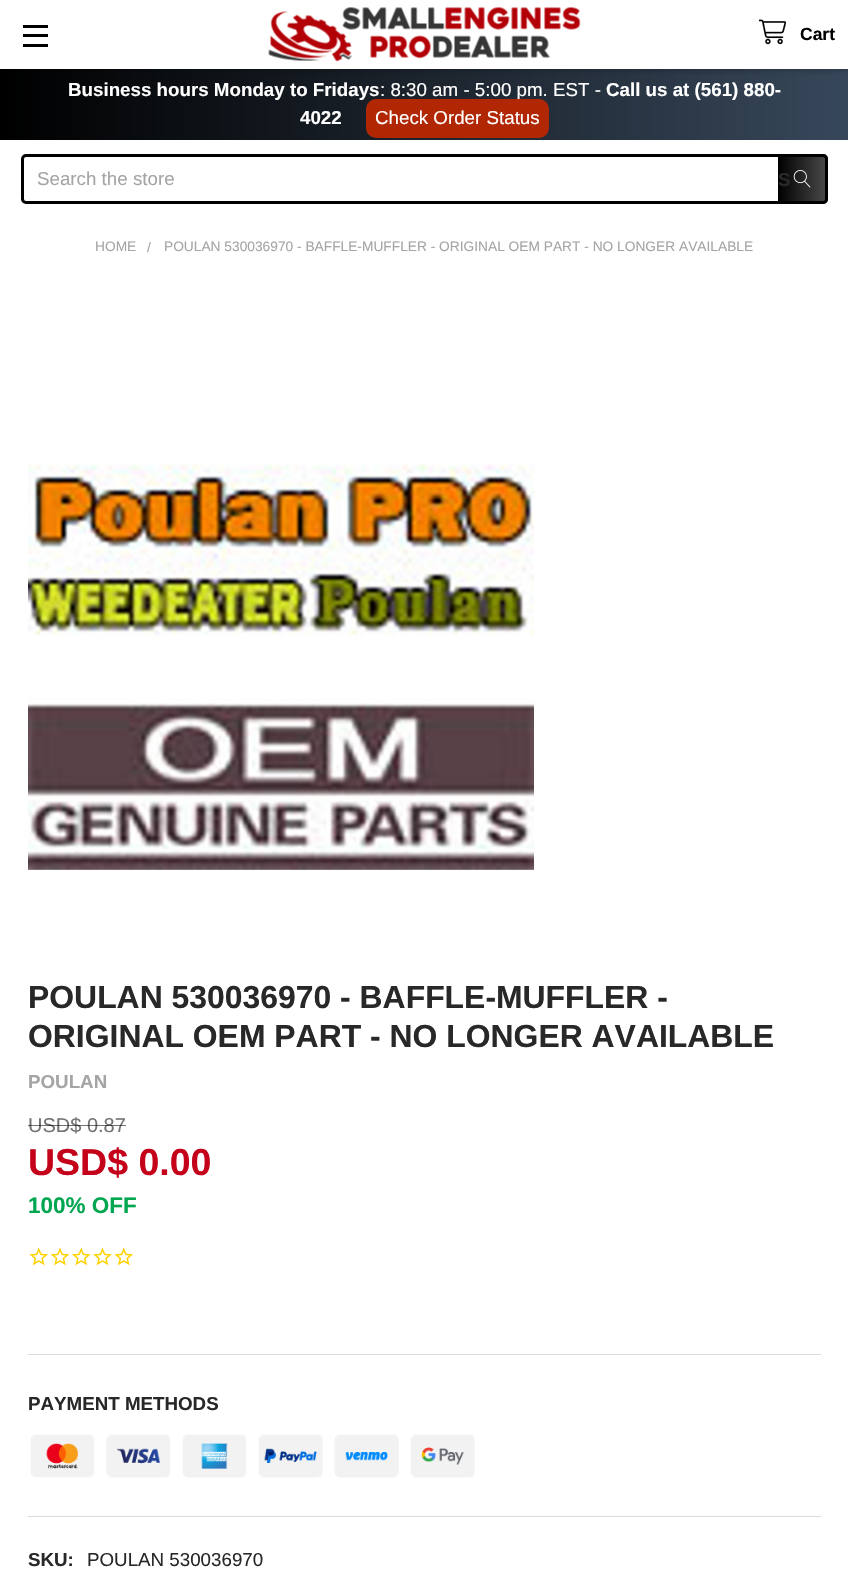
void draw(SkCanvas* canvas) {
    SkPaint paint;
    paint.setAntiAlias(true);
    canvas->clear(0xFFFFFFFF);
    {
        const SkColor colors[] = {0xFF000000, 0xFF37475A};
        const float stops[] = {0, 1};
        const SkPoint ends[] = {{0, 104}, {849, 104}};
        paint.setShader(SkGradientShader::MakeLinear(ends, colors, stops, 2, SkTileMode::kClamp));
        paint.setAlpha(255);
    }
    canvas->drawRect(SkRect::MakeXYWH(0, 69, 848, 71), paint);
    paint.setShader(nullptr);
    paint.setColor(0x33000000);
    paint.setMaskFilter(SkMaskFilter::MakeBlur(kNormal_SkBlurStyle, 3));
    canvas->drawRect(SkRect::MakeXYWH(0, 3, 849, 68), paint);
    paint.setMaskFilter(nullptr);
    paint.setColor(0xFFFFFFFF);
    canvas->drawRect(SkRect::MakeXYWH(0, 0, 848, 69), paint);
    paint.setColor(0xFF000000);
    canvas->drawRect(SkRect::MakeXYWH(23, 34, 25, 3), paint);
    canvas->drawRect(SkRect::MakeXYWH(23, 25, 25, 3), paint);
    canvas->drawRect(SkRect::MakeXYWH(23, 44, 25, 3), paint);
    canvas->drawImageRect(SkImages::DeferredFromEncodedData(SkData::MakeFromFileName("img1.png")), SkRect::MakeXYWH(268, 7, 313, 55), SkSamplingOptions());
    canvas->drawImageRect(SkImages::DeferredFromEncodedData(SkData::MakeFromFileName("img2.png")), SkRect::MakeXYWH(759, 19, 27, 26), SkSamplingOptions());
    SkFont font1(fontMgr->matchFamilyStyle("Liberation Sans", SkFontStyle::Bold()), 17.5f);
    font1.setSubpixel(true);
    canvas->drawString("Cart", 800, 40, font1, paint);
    SkFont font2(fontMgr->matchFamilyStyle("Liberation Sans", SkFontStyle::Bold()), 18.75f);
    font2.setSubpixel(true);
    paint.setColor(0xFFFFFFFF);
    canvas->drawString("Business hours Monday to Fridays", 68, 96, font2, paint);
    SkFont font3(fontMgr->matchFamilyStyle("Liberation Sans", SkFontStyle::Normal()), 18.75f);
    font3.setSubpixel(true);
    canvas->drawString(": 8:30 am - 5:00 pm. EST -", 380, 96, font3, paint);
    canvas->drawString("Call us at (561) 880-", 606, 96, font2, paint);
    canvas->drawString("4022", 300, 124, font2, paint);
    paint.setColor(0xFFB12704);
    canvas->drawRoundRect(SkRect::MakeXYWH(366, 99, 183, 39), 10, 10, paint);
    paint.setColor(0xFFFFFFFF);
    canvas->drawString("Check Order Status", 375, 124, font3, paint);
    paint.setStyle(SkPaint::kStroke_Style);
    paint.setStrokeWidth(3);
    paint.setColor(0xFF000000);
    canvas->drawRoundRect(SkRect::MakeXYWH(22.5f, 155.5f, 804, 47), 3.5f, 3.5f, paint);
    paint.setStyle(SkPaint::kFill_Style);
    paint.setColor(0xFFA5A5A5);
    canvas->drawString("Search the store", 37, 185, font3, paint);
    {
        const SkColor colors[] = {0xFF000000, 0xB3000000};
        const float stops[] = {0, 1};
        const SkPoint ends[] = {{778, 179}, {828, 179}};
        paint.setShader(SkGradientShader::MakeLinear(ends, colors, stops, 2, SkTileMode::kClamp));
        paint.setAlpha(255);
    }
    canvas->drawPath(SkPathBuilder().moveTo(778, 154).lineTo(823, 154).cubicTo(826, 154, 828, 156, 828, 159).lineTo(828, 199).cubicTo(828, 202, 826, 204, 823, 204).lineTo(778, 204).close().detach(), paint);
    paint.setShader(nullptr);
    paint.setColor(0xFF282828);
    canvas->drawString("S", 778, 186, font2, paint);
    canvas->drawImageRect(SkImages::DeferredFromEncodedData(SkData::MakeFromFileName("img3.png")), SkRect::MakeXYWH(793, 170, 18, 18), SkSamplingOptions());
    SkFont font4(fontMgr->matchFamilyStyle("Liberation Sans", SkFontStyle::Normal()), 13.75f);
    font4.setSubpixel(true);
    paint.setColor(0xFFA5A5A5);
    canvas->drawString("HOME", 95, 251, font4, paint);
    canvas->drawString("/", 147, 252, font4, paint);
    canvas->drawString("POULAN 530036970 - BAFFLE-MUFFLER - ORIGINAL OEM PART - NO LONGER AVAILABLE", 164, 251, font4, paint);
    canvas->drawImageRect(SkImages::DeferredFromEncodedData(SkData::MakeFromFileName("img4.png")), SkRect::MakeXYWH(28, 463, 506, 407), SkSamplingOptions());
    SkFont font5(fontMgr->matchFamilyStyle("Liberation Sans", SkFontStyle::Bold()), 31.9f);
    font5.setSubpixel(true);
    paint.setColor(0xFF282828);
    canvas->drawString("POULAN 530036970 - BAFFLE-MUFFLER -", 28, 1008, font5, paint);
    canvas->drawString("ORIGINAL OEM PART - NO LONGER AVAILABLE", 28, 1047, font5, paint);
    paint.setColor(0xFFA5A5A5);
    canvas->drawString("POULAN", 28, 1088, font2, paint);
    SkFont font6(fontMgr->matchFamilyStyle("Liberation Sans", SkFontStyle::Normal()), 20);
    font6.setSubpixel(true);
    paint.setColor(0xFF737373);
    canvas->drawString("USD$ 0.87", 28, 1132, font6, paint);
    paint.setColor(0x8C000000);
    canvas->drawRect(SkRect::MakeXYWH(28, 1125, 98, 1), paint);
    SkFont font7(fontMgr->matchFamilyStyle("Liberation Sans", SkFontStyle::Bold()), 37.5f);
    font7.setSubpixel(true);
    paint.setColor(0xFFC4021A);
    canvas->drawString("USD$ 0.00", 28, 1175, font7, paint);
    SkFont font8(fontMgr->matchFamilyStyle("Liberation Sans", SkFontStyle::Bold()), 22.5f);
    font8.setSubpixel(true);
    paint.setColor(0xFF00A650);
    canvas->drawString("100% OFF", 28, 1213, font8, paint);
    canvas->drawImageRect(SkImages::DeferredFromEncodedData(SkData::MakeFromFileName("img5.png")), SkRect::MakeXYWH(29, 1247, 19, 19), SkSamplingOptions());
    canvas->drawImageRect(SkImages::DeferredFromEncodedData(SkData::MakeFromFileName("img6.png")), SkRect::MakeXYWH(50, 1247, 20, 19), SkSamplingOptions());
    canvas->drawImageRect(SkImages::DeferredFromEncodedData(SkData::MakeFromFileName("img7.png")), SkRect::MakeXYWH(72, 1247, 19, 19), SkSamplingOptions());
    canvas->drawImageRect(SkImages::DeferredFromEncodedData(SkData::MakeFromFileName("img8.png")), SkRect::MakeXYWH(93, 1247, 19, 19), SkSamplingOptions());
    canvas->drawImageRect(SkImages::DeferredFromEncodedData(SkData::MakeFromFileName("img5.png")), SkRect::MakeXYWH(114, 1247, 19, 19), SkSamplingOptions());
    paint.setColor(0xFFDCDCDC);
    canvas->drawRect(SkRect::MakeXYWH(28, 1354, 793, 1), paint);
    paint.setColor(0xFF282828);
    canvas->drawString("PAYMENT METHODS", 28, 1410, font2, paint);
    canvas->drawImageRect(SkImages::DeferredFromEncodedData(SkData::MakeFromFileName("img9.png")), SkRect::MakeXYWH(30, 1434, 445, 44), SkSamplingOptions());
    paint.setColor(0xFFDCDCDC);
    canvas->drawRect(SkRect::MakeXYWH(28, 1516, 793, 1), paint);
    paint.setColor(0xFF282828);
    canvas->drawString("SKU:", 28, 1566, font2, paint);
    canvas->drawString("POULAN 530036970", 87, 1566, font3, paint);
}
